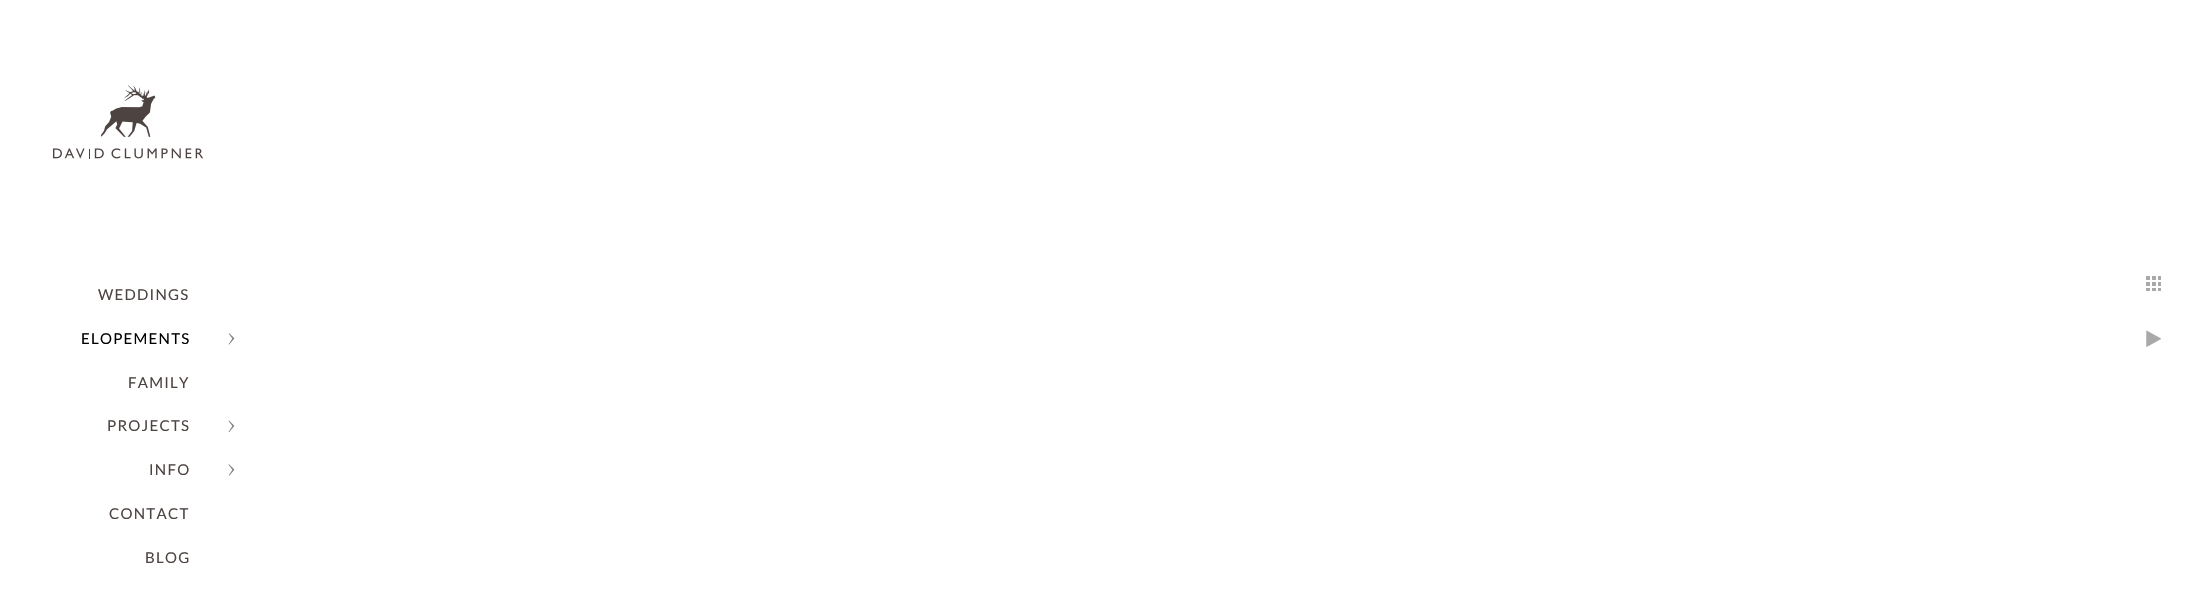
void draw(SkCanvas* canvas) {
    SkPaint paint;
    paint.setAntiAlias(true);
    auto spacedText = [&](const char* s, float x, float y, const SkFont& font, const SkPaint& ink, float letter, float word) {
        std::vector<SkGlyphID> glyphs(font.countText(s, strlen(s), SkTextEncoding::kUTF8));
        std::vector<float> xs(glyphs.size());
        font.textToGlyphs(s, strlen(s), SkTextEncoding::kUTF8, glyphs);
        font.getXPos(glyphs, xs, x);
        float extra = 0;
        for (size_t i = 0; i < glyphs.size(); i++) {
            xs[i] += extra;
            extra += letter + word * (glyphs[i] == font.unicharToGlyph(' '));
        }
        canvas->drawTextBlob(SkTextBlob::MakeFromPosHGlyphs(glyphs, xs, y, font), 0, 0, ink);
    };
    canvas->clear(0xFFFFFFFF);
    canvas->drawImageRect(SkImages::DeferredFromEncodedData(SkData::MakeFromFileName("img1.png")), SkRect::MakeXYWH(53, 85, 151, 74), SkSamplingOptions());
    SkFont font1(fontMgr->matchFamilyStyle("Lato", SkFontStyle::Normal()), 15);
    font1.setSubpixel(true);
    paint.setColor(0xFF4D4442);
    spacedText("WEDDINGS", 98, 300, font1, paint, 1.25f, 0);
    paint.setColor(0xFF000000);
    spacedText("ELOPEMENTS", 81, 344, font1, paint, 1.25f, 0);
    canvas->drawImageRect(SkImages::DeferredFromEncodedData(SkData::MakeFromFileName("img2.png")), SkRect::MakeXYWH(228, 333, 7, 12), SkSamplingOptions());
    paint.setColor(0xFF4D4442);
    spacedText("FAMILY", 128, 388, font1, paint, 1.25f, 0);
    spacedText("PROJECTS", 107, 431, font1, paint, 1.25f, 0);
    canvas->drawImageRect(SkImages::DeferredFromEncodedData(SkData::MakeFromFileName("img3.png")), SkRect::MakeXYWH(228, 420, 7, 13), SkSamplingOptions());
    spacedText("INFO", 149, 475, font1, paint, 1.25f, 0);
    canvas->drawImageRect(SkImages::DeferredFromEncodedData(SkData::MakeFromFileName("img4.png")), SkRect::MakeXYWH(228, 464, 7, 12), SkSamplingOptions());
    spacedText("CONTACT", 109, 519, font1, paint, 1.25f, 0);
    spacedText("BLOG", 145, 563, font1, paint, 1.25f, 0);
    canvas->drawImageRect(SkImages::DeferredFromEncodedData(SkData::MakeFromFileName("img5.png")), SkRect::MakeXYWH(2146, 276, 15, 15), SkSamplingOptions());
    canvas->drawImageRect(SkImages::DeferredFromEncodedData(SkData::MakeFromFileName("img6.png")), SkRect::MakeXYWH(2146, 330, 15, 17), SkSamplingOptions());
}
